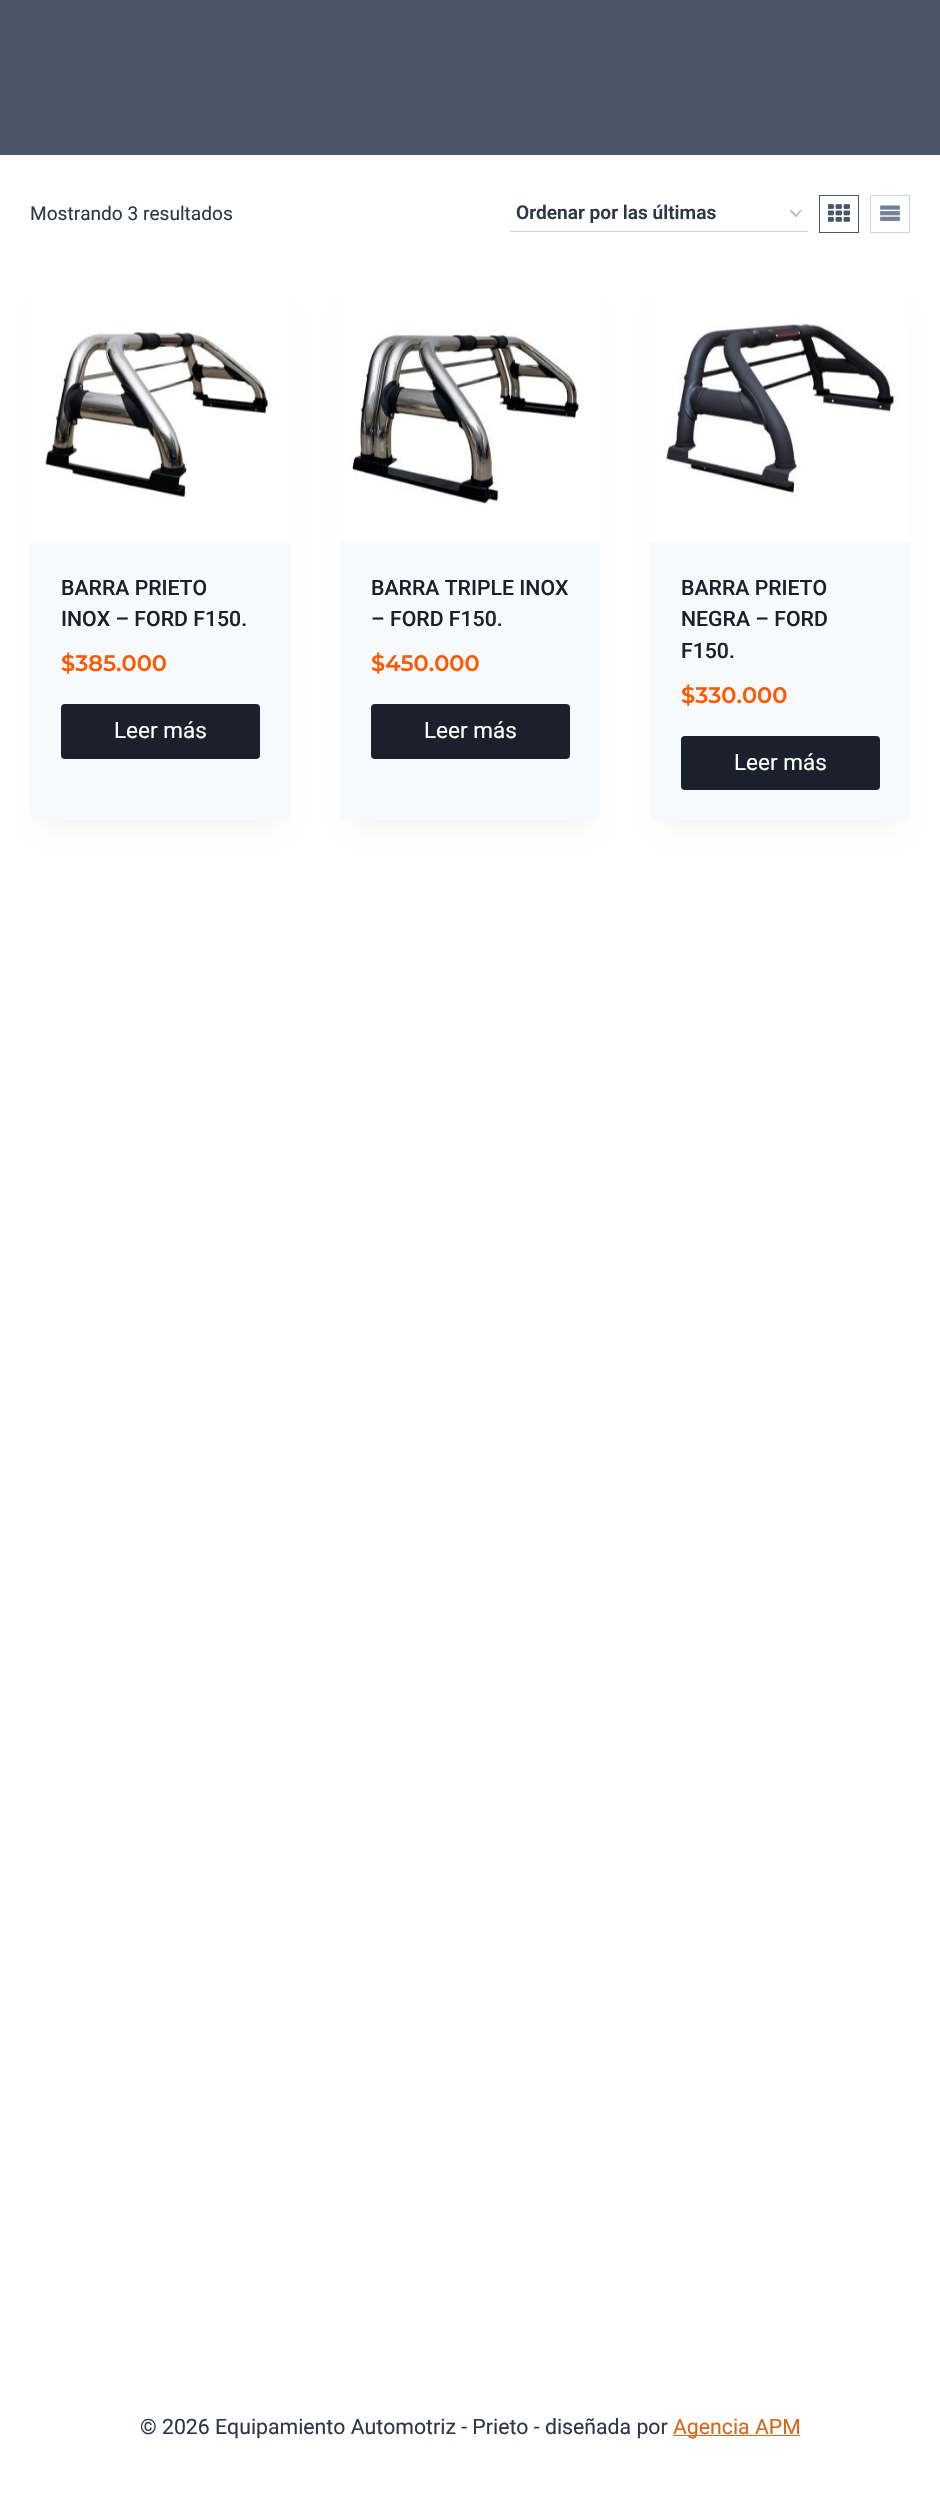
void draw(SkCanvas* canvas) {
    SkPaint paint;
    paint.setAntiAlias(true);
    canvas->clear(0xFFFFFFFF);
    paint.setColor(0xFF4A5568);
    canvas->drawRect(SkRect::MakeXYWH(0, 0, 940, 155), paint);
    SkFont font1(fontMgr->matchFamilyStyle("Roboto", SkFontStyle::Normal()), 19.1f);
    font1.setSubpixel(true);
    paint.setColor(0xFF2D3748);
    canvas->drawString("Mostrando 3 resultados", 30, 220, font1, paint);
    paint.setStyle(SkPaint::kStroke_Style);
    paint.setStrokeWidth(1.8f);
    paint.setColor(0xFFBBBBBB);
    canvas->drawPath(SkPathBuilder().moveTo(790.5f, 210.5f).lineTo(796, 216).lineTo(801, 210.5f).detach(), paint);
    paint.setStyle(SkPaint::kFill_Style);
    paint.setColor(0xFFCBD5E0);
    canvas->drawRect(SkRect::MakeXYWH(510, 231, 298, 1), paint);
    SkFont font2(fontMgr->matchFamilyStyle("Roboto", SkFontStyle(600, SkFontStyle::kNormal_Width, SkFontStyle::kUpright_Slant)), 19.1f);
    font2.setSubpixel(true);
    paint.setColor(0xFF2D3748);
    canvas->drawString("Ordenar por las últimas", 516, 219, font2, paint);
    paint.setStyle(SkPaint::kStroke_Style);
    paint.setStrokeWidth(1);
    paint.setColor(0xFF4A5568);
    canvas->drawRect(SkRect::MakeXYWH(819.5f, 195.5f, 39, 37), paint);
    canvas->drawImageRect(SkImages::DeferredFromEncodedData(SkData::MakeFromFileName("img1.png")), SkRect::MakeXYWH(828, 204, 22, 18), SkSamplingOptions());
    paint.setColor(0xFFCBD5E0);
    canvas->drawRect(SkRect::MakeXYWH(870.5f, 195.5f, 39, 37), paint);
    canvas->drawImageRect(SkImages::DeferredFromEncodedData(SkData::MakeFromFileName("img2.png")), SkRect::MakeXYWH(880, 205, 20, 16), SkSamplingOptions());
    paint.setStyle(SkPaint::kFill_Style);
    paint.setColor(0x0D000000);
    paint.setMaskFilter(SkMaskFilter::MakeBlur(kNormal_SkBlurStyle, 9.5f));
    canvas->drawRect(SkRect::MakeXYWH(43, 314, 235, 512), paint);
    paint.setMaskFilter(nullptr);
    paint.setColor(0xFFF7FAFC);
    canvas->drawRoundRect(SkRect::MakeXYWH(30, 283, 260, 537), 5, 5, paint);
    canvas->drawImageRect(SkImages::DeferredFromEncodedData(SkData::MakeFromFileName("img3.png")), SkRect::MakeXYWH(30, 283, 260, 259), SkSamplingOptions());
    SkFont font3(fontMgr->matchFamilyStyle("Roboto", SkFontStyle(500, SkFontStyle::kNormal_Width, SkFontStyle::kUpright_Slant)), 21.25f);
    font3.setSubpixel(true);
    paint.setColor(0xFF1A202C);
    canvas->drawString("BARRA PRIETO", 61, 595, font3, paint);
    canvas->drawString("INOX – FORD F150.", 61, 626, font3, paint);
    SkFont font4(fontMgr->matchFamilyStyle("Montserrat", SkFontStyle(600, SkFontStyle::kNormal_Width, SkFontStyle::kUpright_Slant)), 22.5f);
    font4.setSubpixel(true);
    paint.setColor(0xFFFF5900);
    canvas->drawString("$385.000", 61, 671, font4, paint);
    paint.setColor(0xFF1A202C);
    canvas->drawRoundRect(SkRect::MakeXYWH(61, 704, 199, 55), 4, 4, paint);
    SkFont font5(fontMgr->matchFamilyStyle("Roboto", SkFontStyle::Normal()), 22.5f);
    font5.setSubpixel(true);
    paint.setColor(0xFFFFFFFF);
    canvas->drawString("Leer más", 114, 738, font5, paint);
    paint.setColor(0x0D000000);
    paint.setMaskFilter(SkMaskFilter::MakeBlur(kNormal_SkBlurStyle, 9.5f));
    canvas->drawRect(SkRect::MakeXYWH(353, 314, 235, 512), paint);
    paint.setMaskFilter(nullptr);
    paint.setColor(0xFFF7FAFC);
    canvas->drawRoundRect(SkRect::MakeXYWH(340, 283, 260, 537), 5, 5, paint);
    canvas->drawImageRect(SkImages::DeferredFromEncodedData(SkData::MakeFromFileName("img4.png")), SkRect::MakeXYWH(340, 283, 260, 259), SkSamplingOptions());
    paint.setColor(0xFF1A202C);
    canvas->drawString("BARRA TRIPLE INOX", 371, 595, font3, paint);
    canvas->drawString("– FORD F150.", 371, 626, font3, paint);
    paint.setColor(0xFFFF5900);
    canvas->drawString("$450.000", 371, 671, font4, paint);
    paint.setColor(0xFF1A202C);
    canvas->drawRoundRect(SkRect::MakeXYWH(371, 704, 199, 55), 4, 4, paint);
    paint.setColor(0xFFFFFFFF);
    canvas->drawString("Leer más", 424, 738, font5, paint);
    paint.setColor(0x0D000000);
    paint.setMaskFilter(SkMaskFilter::MakeBlur(kNormal_SkBlurStyle, 9.5f));
    canvas->drawRect(SkRect::MakeXYWH(663, 314, 235, 512), paint);
    paint.setMaskFilter(nullptr);
    paint.setColor(0xFFF7FAFC);
    canvas->drawRoundRect(SkRect::MakeXYWH(650, 283, 260, 537), 5, 5, paint);
    canvas->drawImageRect(SkImages::DeferredFromEncodedData(SkData::MakeFromFileName("img5.png")), SkRect::MakeXYWH(650, 283, 260, 259), SkSamplingOptions());
    paint.setColor(0xFF1A202C);
    canvas->drawString("BARRA PRIETO", 681, 595, font3, paint);
    canvas->drawString("NEGRA – FORD", 681, 626, font3, paint);
    canvas->drawString("F150.", 681, 658, font3, paint);
    paint.setColor(0xFFFF5900);
    canvas->drawString("$330.000", 681, 703, font4, paint);
    paint.setColor(0xFF1A202C);
    canvas->drawRoundRect(SkRect::MakeXYWH(681, 736, 199, 54), 4, 4, paint);
    paint.setColor(0xFFFFFFFF);
    canvas->drawString("Leer más", 734, 770, font5, paint);
    SkFont font6(fontMgr->matchFamilyStyle("Roboto", SkFontStyle::Normal()), 21.25f);
    font6.setSubpixel(true);
    paint.setColor(0xFF2D3748);
    canvas->drawString("© 2026 Equipamiento Automotriz - Prieto - diseñada por", 140, 2434, font6, paint);
    paint.setColor(0xFFD7671A);
    canvas->drawRect(SkRect::MakeXYWH(673, 2435, 127, 1), paint);
    canvas->drawString("Agencia APM", 673, 2434, font6, paint);
}
